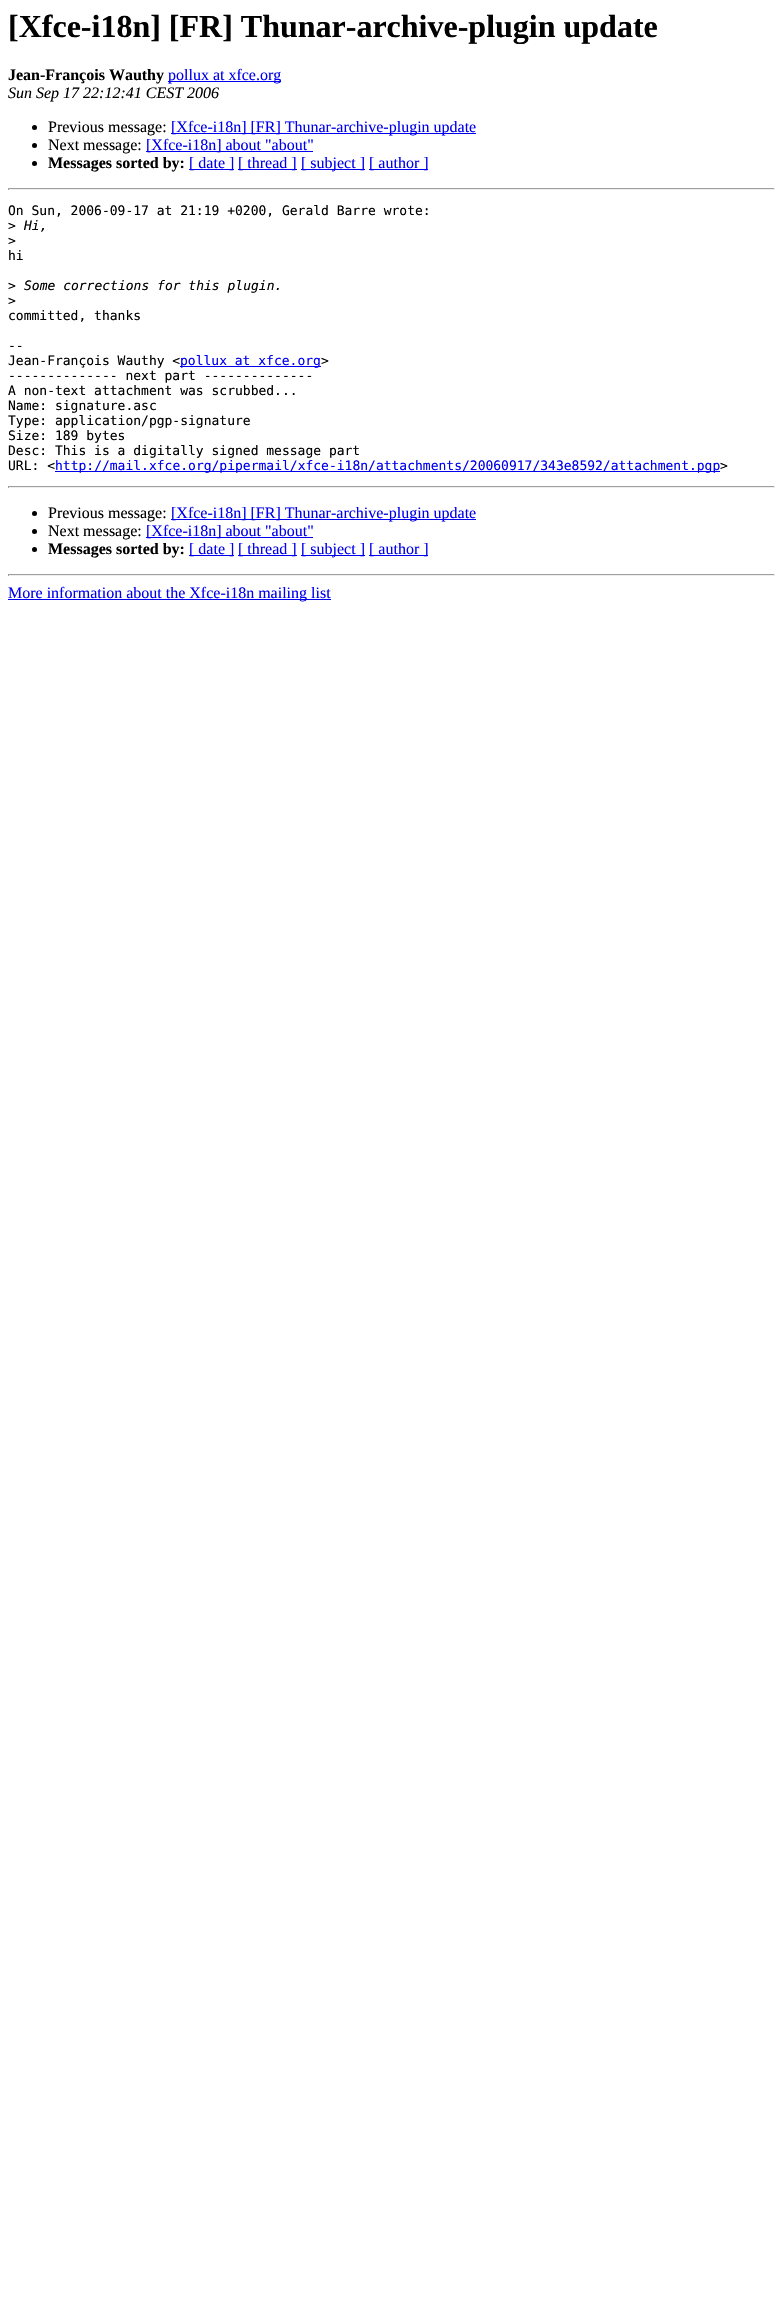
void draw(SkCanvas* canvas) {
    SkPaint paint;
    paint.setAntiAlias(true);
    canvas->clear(0xFFFFFFFF);
    SkFont font1(fontMgr->matchFamilyStyle("Liberation Serif", SkFontStyle::Bold()), 32);
    font1.setSubpixel(true);
    paint.setColor(0xFF000000);
    canvas->drawString("[Xfce-i18n] [FR] Thunar-archive-plugin update", 8, 37, font1, paint);
    SkFont font2(fontMgr->matchFamilyStyle("Liberation Serif", SkFontStyle::Bold()), 16);
    font2.setSubpixel(true);
    canvas->drawString("Jean-François Wauthy", 8, 80, font2, paint);
    paint.setColor(0xFF0000EE);
    canvas->drawRect(SkRect::MakeXYWH(168, 81, 113, 1), paint);
    SkFont font3(fontMgr->matchFamilyStyle("Liberation Serif", SkFontStyle::Normal()), 16);
    font3.setSubpixel(true);
    canvas->drawString("pollux at xfce.org", 168, 80, font3, paint);
    SkFont font4(fontMgr->matchFamilyStyle("Liberation Serif", SkFontStyle::Italic()), 16);
    font4.setSubpixel(true);
    paint.setColor(0xFF000000);
    canvas->drawString("Sun Sep 17 22:12:41 CEST 2006", 8, 98, font4, paint);
    canvas->drawCircle(34.5f, 127.5f, 2.5f, paint);
    canvas->drawString("Previous message:", 48, 132, font3, paint);
    paint.setColor(0xFF0000EE);
    canvas->drawRect(SkRect::MakeXYWH(171, 133, 305, 1), paint);
    canvas->drawString("[Xfce-i18n] [FR] Thunar-archive-plugin update", 171, 132, font3, paint);
    paint.setColor(0xFF000000);
    canvas->drawCircle(34.5f, 145.5f, 2.5f, paint);
    canvas->drawString("Next message:", 48, 150, font3, paint);
    paint.setColor(0xFF0000EE);
    canvas->drawRect(SkRect::MakeXYWH(146, 151, 167, 1), paint);
    canvas->drawString("[Xfce-i18n] about \"about\"", 146, 150, font3, paint);
    paint.setColor(0xFF000000);
    canvas->drawCircle(34.5f, 163.5f, 2.5f, paint);
    canvas->drawString("Messages sorted by:", 48, 168, font2, paint);
    paint.setColor(0xFF0000EE);
    canvas->drawRect(SkRect::MakeXYWH(189, 169, 45, 1), paint);
    canvas->drawString("[ date ]", 189, 168, font3, paint);
    canvas->drawRect(SkRect::MakeXYWH(238, 169, 59, 1), paint);
    canvas->drawString("[ thread ]", 238, 168, font3, paint);
    canvas->drawRect(SkRect::MakeXYWH(301, 169, 64, 1), paint);
    canvas->drawString("[ subject ]", 301, 168, font3, paint);
    canvas->drawRect(SkRect::MakeXYWH(369, 169, 59, 1), paint);
    canvas->drawString("[ author ]", 369, 168, font3, paint);
    paint.setColor(0xFF9F9F9F);
    canvas->drawRect(SkRect::MakeXYWH(8, 188, 767, 1), paint);
    paint.setColor(0xFFEEEEEE);
    canvas->drawRect(SkRect::MakeXYWH(774, 188, 1, 2), paint);
    canvas->drawRect(SkRect::MakeXYWH(8, 189, 767, 1), paint);
    paint.setColor(0xFF9F9F9F);
    canvas->drawRect(SkRect::MakeXYWH(8, 188, 1, 2), paint);
    SkFont font5(fontMgr->matchFamilyStyle("DejaVu Sans Mono", SkFontStyle::Normal()), 13);
    font5.setSubpixel(true);
    paint.setColor(0xFF000000);
    canvas->drawString("On Sun, 2006-09-17 at 21:19 +0200, Gerald Barre wrote:", 8, 215, font5, paint);
    canvas->drawString(">", 8, 230, font5, paint);
    SkFont font6(fontMgr->matchFamilyStyle("DejaVu Sans Mono", SkFontStyle::Italic()), 13);
    font6.setSubpixel(true);
    canvas->drawString("Hi,", 24, 230, font6, paint);
    canvas->drawString(">", 8, 245, font5, paint);
    canvas->drawString("hi", 8, 260, font5, paint);
    canvas->drawString(">", 8, 290, font5, paint);
    canvas->drawString("Some corrections for this plugin.", 24, 290, font6, paint);
    canvas->drawString(">", 8, 305, font5, paint);
    canvas->drawString("committed, thanks", 8, 320, font5, paint);
    canvas->drawString("--", 8, 350, font5, paint);
    canvas->drawString("Jean-François Wauthy <", 8, 365, font5, paint);
    paint.setColor(0xFF0000EE);
    canvas->drawRect(SkRect::MakeXYWH(180, 366, 141, 1), paint);
    canvas->drawString("pollux at xfce.org", 180, 365, font5, paint);
    paint.setColor(0xFF000000);
    canvas->drawString(">", 321, 365, font5, paint);
    canvas->drawString("-------------- next part --------------", 8, 380, font5, paint);
    canvas->drawString("A non-text attachment was scrubbed...", 8, 395, font5, paint);
    canvas->drawString("Name: signature.asc", 8, 410, font5, paint);
    canvas->drawString("Type: application/pgp-signature", 8, 425, font5, paint);
    canvas->drawString("Size: 189 bytes", 8, 440, font5, paint);
    canvas->drawString("Desc: This is a digitally signed message part", 8, 455, font5, paint);
    canvas->drawString("URL: <", 8, 470, font5, paint);
    paint.setColor(0xFF0000EE);
    canvas->drawRect(SkRect::MakeXYWH(55, 471, 665, 1), paint);
    canvas->drawString("http://mail.xfce.org/pipermail/xfce-i18n/attachments/20060917/343e8592/attachment.pgp", 55, 470, font5, paint);
    paint.setColor(0xFF000000);
    canvas->drawString(">", 720, 470, font5, paint);
    paint.setColor(0xFF9F9F9F);
    canvas->drawRect(SkRect::MakeXYWH(8, 486, 767, 1), paint);
    paint.setColor(0xFFEEEEEE);
    canvas->drawRect(SkRect::MakeXYWH(774, 486, 1, 2), paint);
    canvas->drawRect(SkRect::MakeXYWH(8, 487, 767, 1), paint);
    paint.setColor(0xFF9F9F9F);
    canvas->drawRect(SkRect::MakeXYWH(8, 486, 1, 2), paint);
    paint.setColor(0xFF000000);
    canvas->drawCircle(34.5f, 513.5f, 2.5f, paint);
    canvas->drawString("Previous message:", 48, 518, font3, paint);
    paint.setColor(0xFF0000EE);
    canvas->drawRect(SkRect::MakeXYWH(171, 519, 305, 1), paint);
    canvas->drawString("[Xfce-i18n] [FR] Thunar-archive-plugin update", 171, 518, font3, paint);
    paint.setColor(0xFF000000);
    canvas->drawCircle(34.5f, 531.5f, 2.5f, paint);
    canvas->drawString("Next message:", 48, 536, font3, paint);
    paint.setColor(0xFF0000EE);
    canvas->drawRect(SkRect::MakeXYWH(146, 537, 167, 1), paint);
    canvas->drawString("[Xfce-i18n] about \"about\"", 146, 536, font3, paint);
    paint.setColor(0xFF000000);
    canvas->drawCircle(34.5f, 549.5f, 2.5f, paint);
    canvas->drawString("Messages sorted by:", 48, 554, font2, paint);
    paint.setColor(0xFF0000EE);
    canvas->drawRect(SkRect::MakeXYWH(189, 555, 45, 1), paint);
    canvas->drawString("[ date ]", 189, 554, font3, paint);
    canvas->drawRect(SkRect::MakeXYWH(238, 555, 59, 1), paint);
    canvas->drawString("[ thread ]", 238, 554, font3, paint);
    canvas->drawRect(SkRect::MakeXYWH(301, 555, 64, 1), paint);
    canvas->drawString("[ subject ]", 301, 554, font3, paint);
    canvas->drawRect(SkRect::MakeXYWH(369, 555, 59, 1), paint);
    canvas->drawString("[ author ]", 369, 554, font3, paint);
    paint.setColor(0xFF9F9F9F);
    canvas->drawRect(SkRect::MakeXYWH(8, 574, 767, 1), paint);
    paint.setColor(0xFFEEEEEE);
    canvas->drawRect(SkRect::MakeXYWH(774, 574, 1, 2), paint);
    canvas->drawRect(SkRect::MakeXYWH(8, 575, 767, 1), paint);
    paint.setColor(0xFF9F9F9F);
    canvas->drawRect(SkRect::MakeXYWH(8, 574, 1, 2), paint);
    paint.setColor(0xFF0000EE);
    canvas->drawRect(SkRect::MakeXYWH(8, 599, 323, 1), paint);
    canvas->drawString("More information about the Xfce-i18n mailing list", 8, 598, font3, paint);
}
